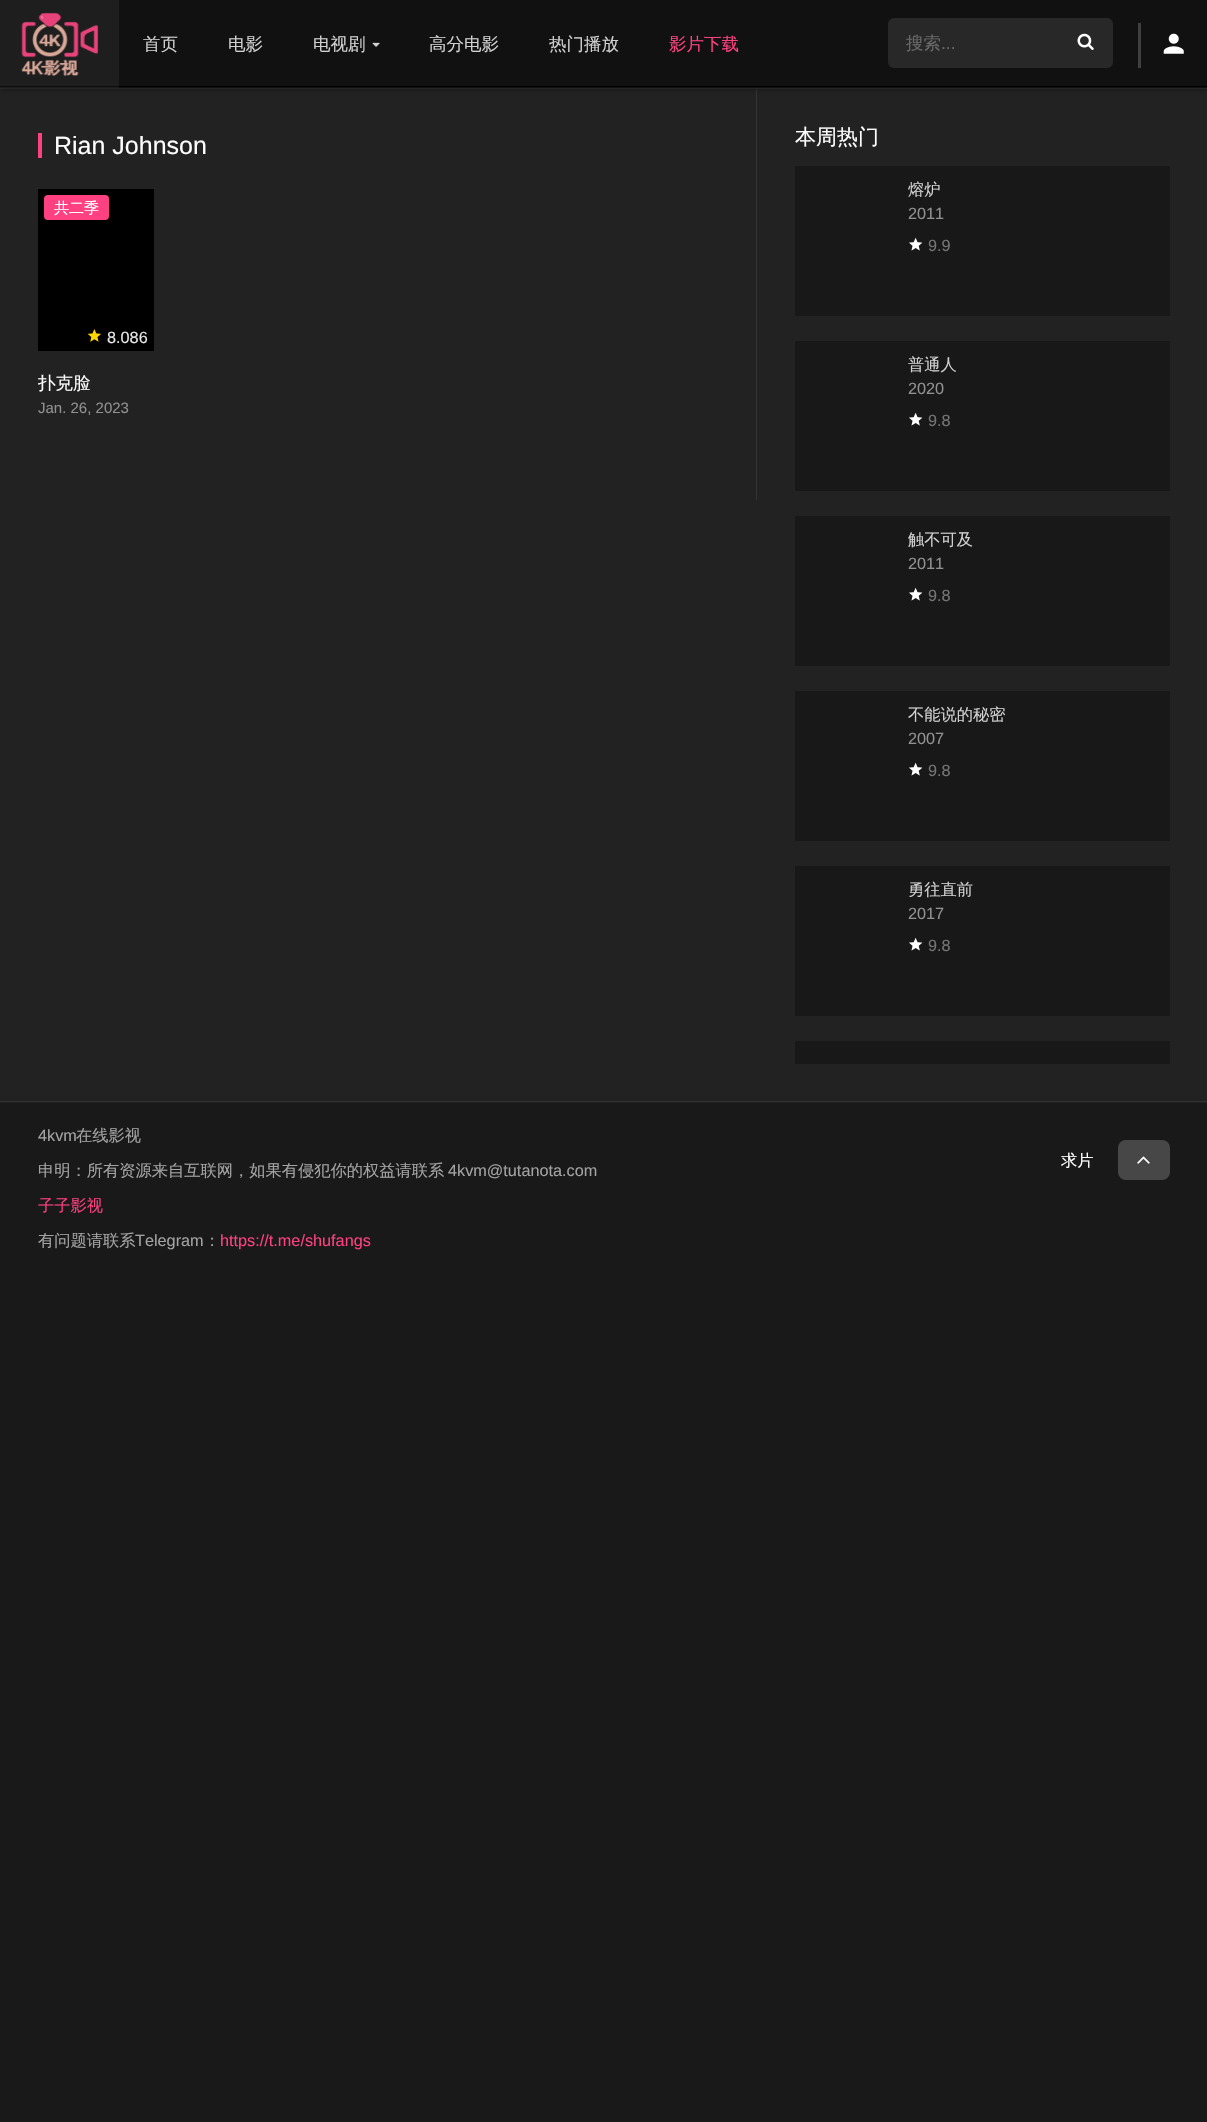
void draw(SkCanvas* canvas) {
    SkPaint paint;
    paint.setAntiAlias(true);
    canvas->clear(0xFF191919);
    paint.setColor(0xFF222222);
    canvas->drawRect(SkRect::MakeXYWH(0, 89, 1207, 1014), paint);
    paint.setColor(0xFF313131);
    canvas->drawRect(SkRect::MakeXYWH(0, 88, 1207, 1), paint);
    paint.setColor(0xFF343434);
    canvas->drawRect(SkRect::MakeXYWH(756, 89, 1, 411), paint);
    canvas->save();
    canvas->clipPath(SkPathBuilder(SkPathFillType::kEvenOdd).moveTo(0, 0).lineTo(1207, 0).lineTo(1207, 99).lineTo(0, 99).close().moveTo(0, 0).lineTo(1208, 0).lineTo(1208, 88).lineTo(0, 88).close().detach(), true);
    paint.setColor(0x66000000);
    paint.setMaskFilter(SkMaskFilter::MakeBlur(kNormal_SkBlurStyle, 3));
    canvas->drawRect(SkRect::MakeXYWH(0, 1, 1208, 88), paint);
    paint.setMaskFilter(nullptr);
    canvas->restore();
    paint.setColor(0xE60F0F0F);
    canvas->drawRect(SkRect::MakeXYWH(0, 0, 1207, 88), paint);
    paint.setColor(0xFF000000);
    canvas->drawRect(SkRect::MakeXYWH(0, 86, 1207, 1), paint);
    paint.setColor(0x0DFFFFFF);
    canvas->drawRect(SkRect::MakeXYWH(0, 0, 119, 88), paint);
    canvas->drawImageRect(SkImages::DeferredFromEncodedData(SkData::MakeFromFileName("img1.png")), SkRect::MakeXYWH(21, 12, 78, 64), SkSamplingOptions());
    SkFont font1(fontMgr->matchFamilyStyle("WenQuanYi Zen Hei", SkFontStyle(500, SkFontStyle::kNormal_Width, SkFontStyle::kUpright_Slant)), 17.5f);
    font1.setSubpixel(true);
    paint.setColor(0xFFD1D1D1);
    canvas->drawString("首页", 143, 50, font1, paint);
    canvas->drawString("电影", 228, 50, font1, paint);
    canvas->drawString("电视剧", 313, 50, font1, paint);
    canvas->drawImageRect(SkImages::DeferredFromEncodedData(SkData::MakeFromFileName("img2.png")), SkRect::MakeXYWH(372, 42, 8, 5), SkSamplingOptions());
    canvas->drawString("高分电影", 429, 50, font1, paint);
    canvas->drawString("热门播放", 549, 50, font1, paint);
    paint.setColor(0xFFFF4081);
    canvas->drawString("影片下载", 669, 50, font1, paint);
    paint.setColor(0xFF282828);
    canvas->drawRoundRect(SkRect::MakeXYWH(888, 18, 225, 50), 6, 6, paint);
    paint.setColor(0xFF696969);
    canvas->drawString("搜索", 906, 49, font1, paint);
    SkFont font2(fontMgr->matchFamilyStyle("Liberation Sans", SkFontStyle::Normal()), 17.5f);
    font2.setSubpixel(true);
    canvas->drawString("...", 941, 49, font2, paint);
    canvas->drawImageRect(SkImages::DeferredFromEncodedData(SkData::MakeFromFileName("img3.png")), SkRect::MakeXYWH(1077, 33, 17, 17), SkSamplingOptions());
    paint.setColor(0xFF404040);
    canvas->drawRect(SkRect::MakeXYWH(1138, 23, 3, 45), paint);
    canvas->drawImageRect(SkImages::DeferredFromEncodedData(SkData::MakeFromFileName("img4.png")), SkRect::MakeXYWH(1163, 33, 21, 21), SkSamplingOptions());
    paint.setColor(0xFF313131);
    canvas->drawRect(SkRect::MakeXYWH(0, 1101, 1207, 1), paint);
    paint.setColor(0xFFFF4081);
    canvas->drawRect(SkRect::MakeXYWH(38, 133, 4, 25), paint);
    SkFont font3(fontMgr->matchFamilyStyle("Liberation Sans", SkFontStyle::Normal()), 25);
    font3.setSubpixel(true);
    paint.setColor(0xFFFFFFFF);
    canvas->drawString("Rian Johnson", 54, 154, font3, paint);
    paint.setColor(0xFF000000);
    canvas->drawRect(SkRect::MakeXYWH(38, 189, 116, 162), paint);
    paint.setColor(0xFFFF4081);
    canvas->drawRoundRect(SkRect::MakeXYWH(44, 195, 65, 25), 4, 4, paint);
    SkFont font4(fontMgr->matchFamilyStyle("WenQuanYi Zen Hei", SkFontStyle(500, SkFontStyle::kNormal_Width, SkFontStyle::kUpright_Slant)), 15);
    font4.setSubpixel(true);
    paint.setColor(0xFFFFFFFF);
    canvas->drawString("共二季", 54, 213, font4, paint);
    canvas->drawImageRect(SkImages::DeferredFromEncodedData(SkData::MakeFromFileName("img5.png")), SkRect::MakeXYWH(87, 329, 14, 13), SkSamplingOptions());
    SkFont font5(fontMgr->matchFamilyStyle("Liberation Sans", SkFontStyle::Normal()), 16.25f);
    font5.setSubpixel(true);
    paint.setColor(0xFFE6E6E6);
    canvas->drawString("8.086", 107, 343, font5, paint);
    canvas->save();
    canvas->clipRect(SkRect::MakeXYWH(38, 370, 116, 25));
    paint.setColor(0xFFFFFFFF);
    canvas->drawString("扑克脸", 38, 389, font1, paint);
    canvas->restore();
    SkFont font6(fontMgr->matchFamilyStyle("Liberation Sans", SkFontStyle::Normal()), 15);
    font6.setSubpixel(true);
    paint.setColor(0xFF919191);
    canvas->drawString("Jan. 26, 2023", 38, 413, font6, paint);
    SkFont font7(fontMgr->matchFamilyStyle("WenQuanYi Zen Hei", SkFontStyle(500, SkFontStyle::kNormal_Width, SkFontStyle::kUpright_Slant)), 21);
    font7.setSubpixel(true);
    paint.setColor(0xFFFFFFFF);
    canvas->drawString("本周热门", 795, 144, font7, paint);
    paint.setColor(0xFF181818);
    canvas->drawRect(SkRect::MakeXYWH(795, 166, 375, 150), paint);
    SkFont font8(fontMgr->matchFamilyStyle("WenQuanYi Zen Hei", SkFontStyle(500, SkFontStyle::kNormal_Width, SkFontStyle::kUpright_Slant)), 16.25f);
    font8.setSubpixel(true);
    paint.setColor(0xFFD1D1D1);
    canvas->drawString("熔炉", 908, 195, font8, paint);
    paint.setColor(0xFF919191);
    canvas->drawString("2011", 908, 219, font5, paint);
    canvas->drawImageRect(SkImages::DeferredFromEncodedData(SkData::MakeFromFileName("img6.png")), SkRect::MakeXYWH(909, 237, 14, 14), SkSamplingOptions());
    paint.setColor(0xFF747474);
    canvas->drawString("9.9", 928, 251, font5, paint);
    paint.setColor(0xFF181818);
    canvas->drawRect(SkRect::MakeXYWH(795, 341, 375, 150), paint);
    paint.setColor(0xFFD1D1D1);
    canvas->drawString("普通人", 908, 370, font8, paint);
    paint.setColor(0xFF919191);
    canvas->drawString("2020", 908, 394, font5, paint);
    canvas->drawImageRect(SkImages::DeferredFromEncodedData(SkData::MakeFromFileName("img6.png")), SkRect::MakeXYWH(909, 412, 14, 14), SkSamplingOptions());
    paint.setColor(0xFF747474);
    canvas->drawString("9.8", 928, 426, font5, paint);
    paint.setColor(0xFF181818);
    canvas->drawRect(SkRect::MakeXYWH(795, 516, 375, 150), paint);
    paint.setColor(0xFFD1D1D1);
    canvas->drawString("触不可及", 908, 545, font8, paint);
    paint.setColor(0xFF919191);
    canvas->drawString("2011", 908, 569, font5, paint);
    canvas->drawImageRect(SkImages::DeferredFromEncodedData(SkData::MakeFromFileName("img6.png")), SkRect::MakeXYWH(909, 587, 14, 14), SkSamplingOptions());
    paint.setColor(0xFF747474);
    canvas->drawString("9.8", 928, 601, font5, paint);
    paint.setColor(0xFF181818);
    canvas->drawRect(SkRect::MakeXYWH(795, 691, 375, 150), paint);
    paint.setColor(0xFFD1D1D1);
    canvas->drawString("不能说的秘密", 908, 720, font8, paint);
    paint.setColor(0xFF919191);
    canvas->drawString("2007", 908, 744, font5, paint);
    canvas->drawImageRect(SkImages::DeferredFromEncodedData(SkData::MakeFromFileName("img6.png")), SkRect::MakeXYWH(909, 762, 14, 14), SkSamplingOptions());
    paint.setColor(0xFF747474);
    canvas->drawString("9.8", 928, 776, font5, paint);
    paint.setColor(0xFF181818);
    canvas->drawRect(SkRect::MakeXYWH(795, 866, 375, 150), paint);
    paint.setColor(0xFFD1D1D1);
    canvas->drawString("勇往直前", 908, 895, font8, paint);
    paint.setColor(0xFF919191);
    canvas->drawString("2017", 908, 919, font5, paint);
    canvas->drawImageRect(SkImages::DeferredFromEncodedData(SkData::MakeFromFileName("img6.png")), SkRect::MakeXYWH(909, 937, 14, 14), SkSamplingOptions());
    paint.setColor(0xFF747474);
    canvas->drawString("9.8", 928, 951, font5, paint);
    paint.setColor(0xFF181818);
    canvas->drawRect(SkRect::MakeXYWH(795, 1041, 375, 23), paint);
    paint.setColor(0xFFA3A3A3);
    canvas->drawString("4kvm", 38, 1141, font5, paint);
    canvas->drawString("在线影视", 76, 1141, font8, paint);
    canvas->drawString("申明：所有资源来自互联网，如果有侵犯你的权益请联系", 38, 1176, font8, paint);
    canvas->drawString("4kvm@tutanota.com", 448, 1176, font5, paint);
    paint.setColor(0xFFFF4081);
    canvas->drawString("子子影视", 38, 1211, font8, paint);
    paint.setColor(0xFFA3A3A3);
    canvas->drawString("有问题请联系", 38, 1246, font8, paint);
    canvas->drawString("Telegram", 135, 1246, font5, paint);
    canvas->drawString("：", 204, 1246, font8, paint);
    paint.setColor(0xFFFF4081);
    canvas->drawString("https://t.me/shufangs", 220, 1246, font5, paint);
    paint.setColor(0xFFFFFFFF);
    canvas->drawString("求片", 1061, 1166, font8, paint);
    paint.setColor(0xFF474747);
    canvas->drawRoundRect(SkRect::MakeXYWH(1118, 1140, 52, 40), 8, 8, paint);
    canvas->drawImageRect(SkImages::DeferredFromEncodedData(SkData::MakeFromFileName("img7.png")), SkRect::MakeXYWH(1137, 1156, 13, 8), SkSamplingOptions());
}
